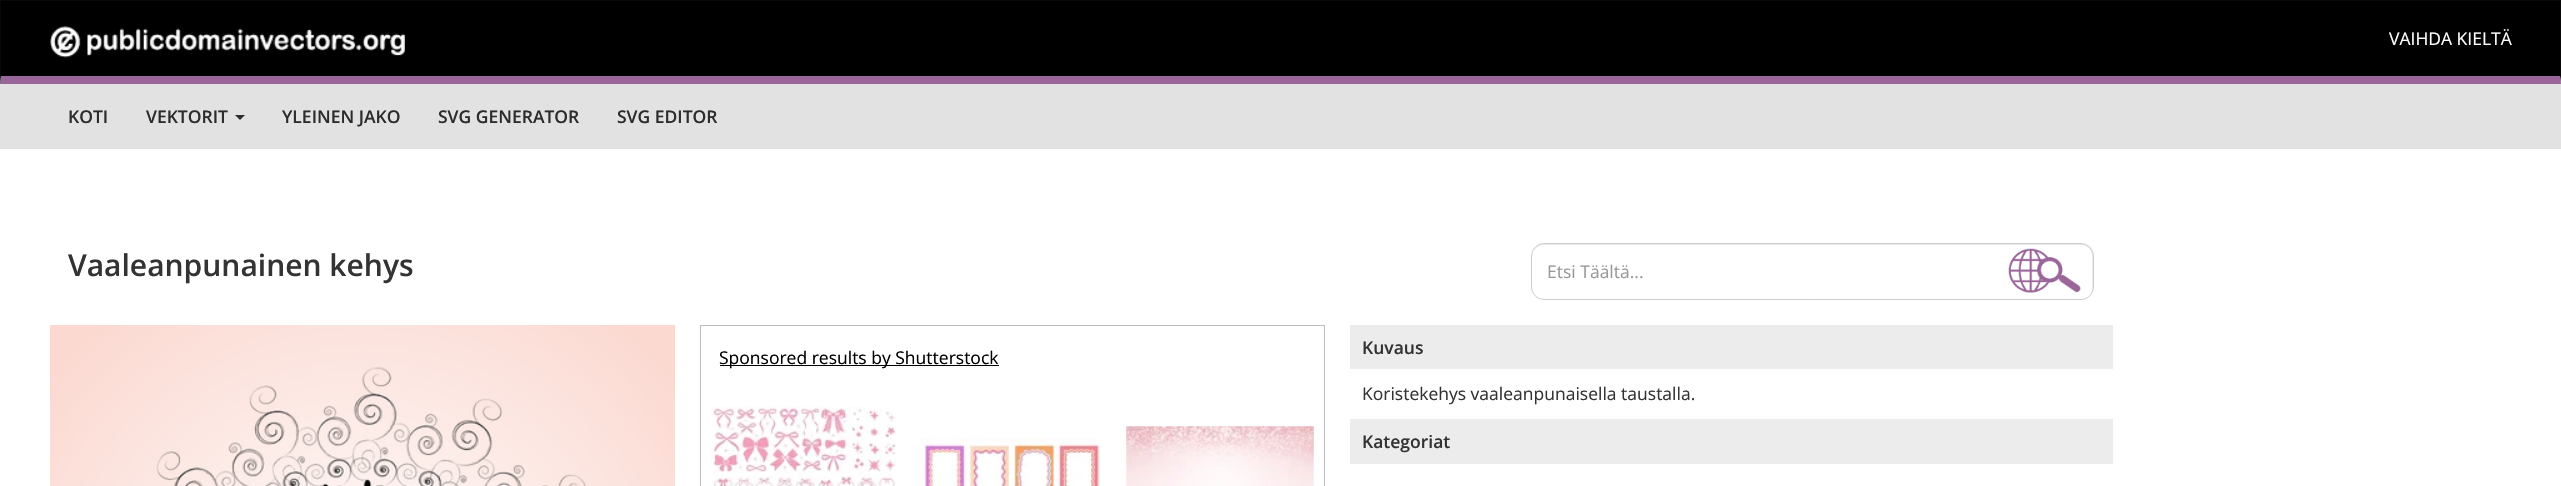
void draw(SkCanvas* canvas) {
    SkPaint paint;
    paint.setAntiAlias(true);
    canvas->clear(0xFFFFFFFF);
    paint.setColor(0xFF000000);
    canvas->drawRect(SkRect::MakeXYWH(1, 1, 2559, 75), paint);
    paint.setColor(0xFF080808);
    canvas->drawRect(SkRect::MakeXYWH(0, 0, 2561, 1), paint);
    canvas->drawPath(SkPathBuilder().moveTo(2561, 0).lineTo(2561, 84).lineTo(2560, 76).lineTo(2560, 1).close().detach(), paint);
    paint.setColor(0xFF996699);
    canvas->drawPath(SkPathBuilder().moveTo(2561, 84).lineTo(0, 84).lineTo(1, 76).lineTo(2560, 76).close().detach(), paint);
    paint.setColor(0xFF080808);
    canvas->drawPath(SkPathBuilder().moveTo(0, 84).lineTo(0, 0).lineTo(1, 1).lineTo(1, 76).close().detach(), paint);
    canvas->drawImageRect(SkImages::DeferredFromEncodedData(SkData::MakeFromFileName("img1.png")), SkRect::MakeXYWH(50, 26, 355, 32), SkSamplingOptions());
    SkFont font1(fontMgr->matchFamilyStyle("Open Sans", SkFontStyle::Normal()), 17.5f);
    font1.setSubpixel(true);
    paint.setColor(0xFFFFFFFF);
    canvas->drawString("VAIHDA KIELTÄ", 2389, 45, font1, paint);
    paint.setColor(0xFFE2E2E2);
    canvas->drawRect(SkRect::MakeXYWH(0, 84, 2561, 65), paint);
    SkFont font2(fontMgr->matchFamilyStyle("Open Sans", SkFontStyle(600, SkFontStyle::kNormal_Width, SkFontStyle::kUpright_Slant)), 17.5f);
    font2.setSubpixel(true);
    paint.setColor(0xFF2C2C2C);
    canvas->drawString("KOTI", 68, 123, font2, paint);
    canvas->drawString("VEKTORIT", 146, 123, font2, paint);
    canvas->drawPath(SkPathBuilder().moveTo(235, 115).lineTo(245, 115).lineTo(240, 120).close().detach(), paint);
    canvas->drawString("YLEINEN JAKO", 282, 123, font2, paint);
    canvas->drawString("SVG GENERATOR", 438, 123, font2, paint);
    canvas->drawString("SVG EDITOR", 617, 123, font2, paint);
    SkFont font3(fontMgr->matchFamilyStyle("Open Sans", SkFontStyle(600, SkFontStyle::kNormal_Width, SkFontStyle::kUpright_Slant)), 30);
    font3.setSubpixel(true);
    paint.setColor(0xFF333333);
    canvas->drawString("Vaaleanpunainen kehys", 68, 276, font3, paint);
    canvas->drawImageRect(SkImages::DeferredFromEncodedData(SkData::MakeFromFileName("img2.png")), SkRect::MakeXYWH(2008, 248, 73, 45), SkSamplingOptions());
    paint.setColor(0xFFECECEC);
    canvas->drawPath(SkPathBuilder().moveTo(1544, 245).lineTo(2081, 245).cubicTo(2087, 245, 2092, 250, 2092, 256).lineTo(2092, 289).cubicTo(2092, 292, 2091, 294, 2089, 296).cubicTo(2091, 294, 2093, 291, 2093, 288).lineTo(2093, 255).cubicTo(2093, 249, 2088, 244, 2082, 244).lineTo(1544, 244).cubicTo(1540, 244, 1536, 246, 1534, 250).cubicTo(1537, 247, 1540, 245, 1544, 245).close().detach(), paint);
    paint.setStyle(SkPaint::kStroke_Style);
    paint.setStrokeWidth(1);
    paint.setColor(0xFFCCCCCC);
    canvas->drawRoundRect(SkRect::MakeXYWH(1531.5f, 243.5f, 562, 56), 12.5f, 12.5f, paint);
    paint.setStyle(SkPaint::kFill_Style);
    paint.setColor(0xFF999999);
    canvas->drawString("Etsi Täältä...", 1547, 278, font1, paint);
    canvas->drawImageRect(SkImages::DeferredFromEncodedData(SkData::MakeFromFileName("img3.png")), SkRect::MakeXYWH(50, 325, 625, 161), SkSamplingOptions());
    paint.setColor(0xFFBBBBBB);
    canvas->drawRect(SkRect::MakeXYWH(700, 325, 625, 1), paint);
    canvas->drawRect(SkRect::MakeXYWH(1324, 325, 1, 161), paint);
    canvas->drawRect(SkRect::MakeXYWH(700, 325, 1, 161), paint);
    paint.setColor(0xFF000000);
    canvas->drawRect(SkRect::MakeXYWH(720, 365, 279, 1), paint);
    canvas->drawString("Sponsored results by Shutterstock", 719, 364, font1, paint);
    canvas->drawImageRect(SkImages::DeferredFromEncodedData(SkData::MakeFromFileName("img4.png")), SkRect::MakeXYWH(711, 406, 185, 80), SkSamplingOptions());
    canvas->drawImageRect(SkImages::DeferredFromEncodedData(SkData::MakeFromFileName("img5.png")), SkRect::MakeXYWH(919, 437, 181, 49), SkSamplingOptions());
    canvas->drawImageRect(SkImages::DeferredFromEncodedData(SkData::MakeFromFileName("img6.png")), SkRect::MakeXYWH(1126, 426, 188, 60), SkSamplingOptions());
    paint.setColor(0xFFECECEC);
    canvas->drawRect(SkRect::MakeXYWH(1350, 325, 763, 44), paint);
    paint.setColor(0xFF333333);
    canvas->drawString("Kuvaus", 1362, 354, font2, paint);
    canvas->drawString("Koristekehys vaaleanpunaisella taustalla.", 1362, 400, font1, paint);
    paint.setColor(0xFFECECEC);
    canvas->drawRect(SkRect::MakeXYWH(1350, 419, 763, 45), paint);
    paint.setColor(0xFF333333);
    canvas->drawString("Kategoriat", 1362, 448, font2, paint);
}
